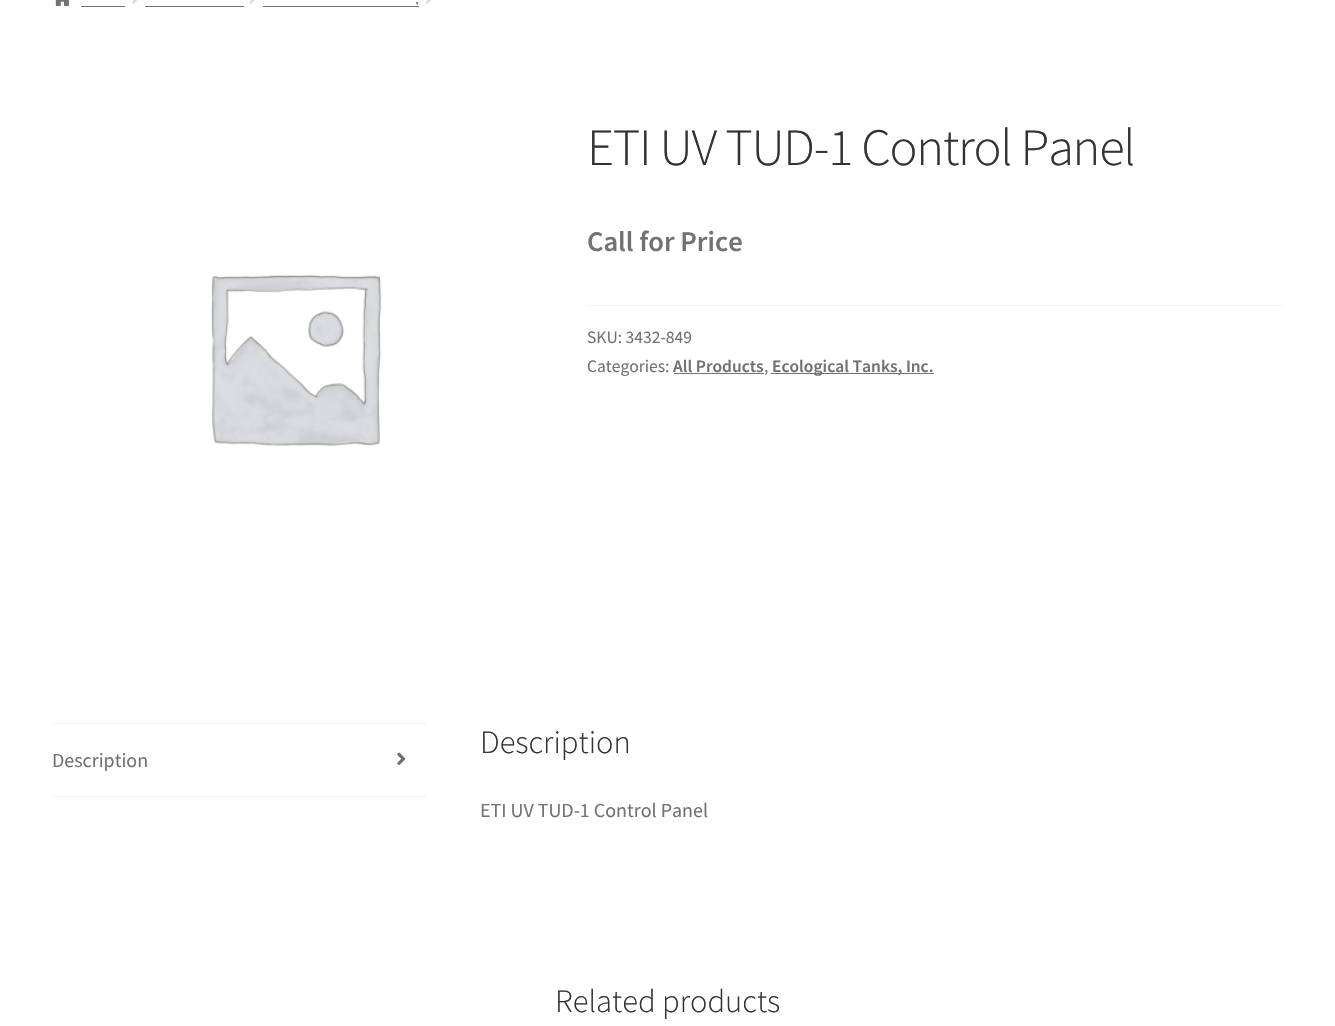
void draw(SkCanvas* canvas) {
    SkPaint paint;
    paint.setAntiAlias(true);
    auto spacedText = [&](const char* s, float x, float y, const SkFont& font, const SkPaint& ink, float letter, float word) {
        std::vector<SkGlyphID> glyphs(font.countText(s, strlen(s), SkTextEncoding::kUTF8));
        std::vector<float> xs(glyphs.size());
        font.textToGlyphs(s, strlen(s), SkTextEncoding::kUTF8, glyphs);
        font.getXPos(glyphs, xs, x);
        float extra = 0;
        for (size_t i = 0; i < glyphs.size(); i++) {
            xs[i] += extra;
            extra += letter + word * (glyphs[i] == font.unicharToGlyph(' '));
        }
        canvas->drawTextBlob(SkTextBlob::MakeFromPosHGlyphs(glyphs, xs, y, font), 0, 0, ink);
    };
    canvas->clear(0xFFFFFFFF);
    canvas->drawImageRect(SkImages::DeferredFromEncodedData(SkData::MakeFromFileName("img1.png")), SkRect::MakeXYWH(55, 0, 14, 7), SkSamplingOptions());
    paint.setColor(0xFF727272);
    canvas->drawRect(SkRect::MakeXYWH(81, 6, 44, 1), paint);
    canvas->drawImageRect(SkImages::DeferredFromEncodedData(SkData::MakeFromFileName("img2.png")), SkRect::MakeXYWH(132, 0, 5, 4), SkSamplingOptions());
    canvas->drawImageRect(SkImages::DeferredFromEncodedData(SkData::MakeFromFileName("img3.png")), SkRect::MakeXYWH(249, 0, 6, 4), SkSamplingOptions());
    SkFont font1(fontMgr->matchFamilyStyle("Source Sans Pro", SkFontStyle::Normal()), 17.5f);
    font1.setSubpixel(true);
    canvas->drawString(".", 415, 4, font1, paint);
    canvas->drawRect(SkRect::MakeXYWH(263, 6, 156, 1), paint);
    canvas->drawImageRect(SkImages::DeferredFromEncodedData(SkData::MakeFromFileName("img4.png")), SkRect::MakeXYWH(425, 0, 6, 4), SkSamplingOptions());
    canvas->drawRect(SkRect::MakeXYWH(145, 6, 99, 1), paint);
    canvas->drawImageRect(SkImages::DeferredFromEncodedData(SkData::MakeFromFileName("img5.png")), SkRect::MakeXYWH(211, 274, 171, 172), SkSamplingOptions());
    SkFont font2(fontMgr->matchFamilyStyle("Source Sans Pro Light", SkFontStyle(300, SkFontStyle::kNormal_Width, SkFontStyle::kUpright_Slant)), 52.4f);
    font2.setSubpixel(true);
    paint.setColor(0xFF333333);
    spacedText("ETI UV TUD-1 Control Panel", 587, 165, font2, paint, -1.25f, 0);
    SkFont font3(fontMgr->matchFamilyStyle("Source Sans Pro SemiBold", SkFontStyle(600, SkFontStyle::kNormal_Width, SkFontStyle::kUpright_Slant)), 28.5f);
    font3.setSubpixel(true);
    paint.setColor(0xFF727272);
    canvas->drawString("Call for Price", 587, 251, font3, paint);
    paint.setColor(0xFFF2F2F2);
    canvas->drawRect(SkRect::MakeXYWH(588, 305, 695, 1), paint);
    paint.setColor(0xFF727272);
    canvas->drawString("SKU: 3432-849", 587, 343, font1, paint);
    canvas->drawString("Categories:", 587, 372, font1, paint);
    SkFont font4(fontMgr->matchFamilyStyle("Source Sans Pro SemiBold", SkFontStyle(600, SkFontStyle::kNormal_Width, SkFontStyle::kUpright_Slant)), 17.5f);
    font4.setSubpixel(true);
    canvas->drawString("All Products", 673, 372, font4, paint);
    canvas->drawRect(SkRect::MakeXYWH(674, 373, 90, 1), paint);
    canvas->drawString(",", 764, 372, font1, paint);
    canvas->drawRect(SkRect::MakeXYWH(771, 373, 163, 1), paint);
    canvas->drawString("Ecological Tanks, Inc.", 772, 372, font4, paint);
    paint.setColor(0xFFF2F2F2);
    canvas->drawRect(SkRect::MakeXYWH(53, 723, 373, 1), paint);
    canvas->drawRect(SkRect::MakeXYWH(53, 796, 373, 1), paint);
    SkFont font5(fontMgr->matchFamilyStyle("Source Sans Pro", SkFontStyle::Normal()), 20);
    font5.setSubpixel(true);
    paint.setColor(0xFF727272);
    canvas->drawString("Description", 52, 767, font5, paint);
    canvas->drawImageRect(SkImages::DeferredFromEncodedData(SkData::MakeFromFileName("img6.png")), SkRect::MakeXYWH(397, 752, 9, 13), SkSamplingOptions());
    SkFont font6(fontMgr->matchFamilyStyle("Source Sans Pro Light", SkFontStyle(300, SkFontStyle::kNormal_Width, SkFontStyle::kUpright_Slant)), 32.5f);
    font6.setSubpixel(true);
    paint.setColor(0xFF333333);
    canvas->drawString("Description", 480, 753, font6, paint);
    paint.setColor(0xFF727272);
    canvas->drawString("ETI UV TUD-1 Control Panel", 480, 817, font5, paint);
    paint.setColor(0xFF333333);
    canvas->drawString("Related products", 555, 1012, font6, paint);
}
